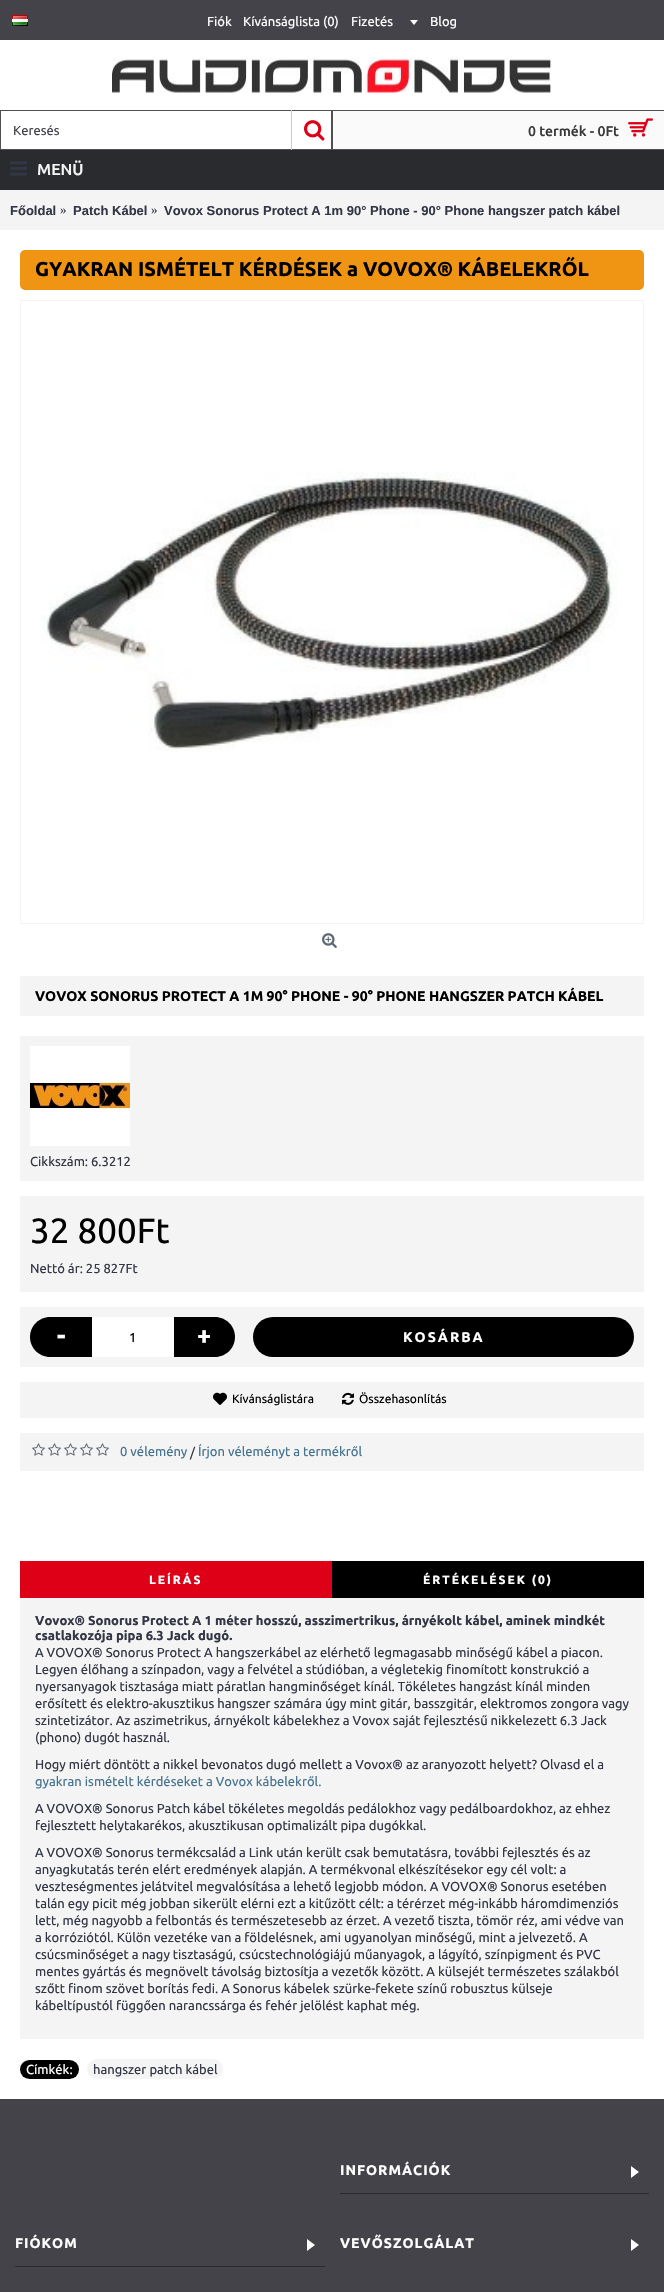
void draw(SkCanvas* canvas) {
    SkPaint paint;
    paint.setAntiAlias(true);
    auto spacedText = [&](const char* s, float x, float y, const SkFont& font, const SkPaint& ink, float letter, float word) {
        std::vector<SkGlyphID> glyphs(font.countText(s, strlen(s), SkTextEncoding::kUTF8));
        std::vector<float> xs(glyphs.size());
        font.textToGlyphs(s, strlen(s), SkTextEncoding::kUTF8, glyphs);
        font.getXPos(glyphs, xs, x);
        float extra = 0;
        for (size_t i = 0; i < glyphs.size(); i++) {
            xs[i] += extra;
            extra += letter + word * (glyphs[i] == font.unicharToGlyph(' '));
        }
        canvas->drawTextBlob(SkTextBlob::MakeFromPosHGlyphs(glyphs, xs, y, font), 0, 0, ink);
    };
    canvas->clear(0xFFFFFFFF);
    paint.setColor(0xFF444349);
    canvas->drawRect(SkRect::MakeXYWH(0, 0, 664, 40), paint);
    canvas->drawImageRect(SkImages::DeferredFromEncodedData(SkData::MakeFromFileName("img1.png")), SkRect::MakeXYWH(12, 15, 16, 11), SkSamplingOptions());
    SkFont font1(fontMgr->matchFamilyStyle("Ubuntu", SkFontStyle::Normal()), 13);
    font1.setSubpixel(true);
    paint.setColor(0xFFFFFFFF);
    canvas->drawString("Fiók", 207, 26, font1, paint);
    canvas->drawString("Kívánságlista (0)", 243, 26, font1, paint);
    canvas->drawString("Fizetés", 351, 26, font1, paint);
    canvas->drawPath(SkPathBuilder().moveTo(418, 20).lineTo(410, 20).lineTo(414, 25).close().detach(), paint);
    canvas->drawString("Blog", 430, 26, font1, paint);
    canvas->drawImageRect(SkImages::DeferredFromEncodedData(SkData::MakeFromFileName("img2.png")), SkRect::MakeXYWH(112, 57, 440, 36), SkSamplingOptions());
    paint.setStyle(SkPaint::kStroke_Style);
    paint.setStrokeWidth(1);
    paint.setColor(0xFF505050);
    canvas->drawRect(SkRect::MakeXYWH(0.5f, 110.5f, 331, 39), paint);
    paint.setStyle(SkPaint::kFill_Style);
    paint.setColor(0xFF444349);
    canvas->drawString("Keresés", 13, 135, font1, paint);
    paint.setColor(0xFFCCCCCC);
    canvas->drawRect(SkRect::MakeXYWH(291, 110, 1, 40), paint);
    canvas->drawImageRect(SkImages::DeferredFromEncodedData(SkData::MakeFromFileName("img3.png")), SkRect::MakeXYWH(304, 120, 21, 21), SkSamplingOptions());
    paint.setColor(0xFFFAFAFA);
    canvas->drawRect(SkRect::MakeXYWH(333, 111, 331, 38), paint);
    paint.setColor(0xFF505050);
    canvas->drawRect(SkRect::MakeXYWH(332, 110, 332, 1), paint);
    canvas->drawRect(SkRect::MakeXYWH(332, 149, 332, 1), paint);
    canvas->drawRect(SkRect::MakeXYWH(332, 110, 1, 40), paint);
    SkFont font2(fontMgr->matchFamilyStyle("Ubuntu", SkFontStyle(500, SkFontStyle::kNormal_Width, SkFontStyle::kUpright_Slant)), 14);
    font2.setSubpixel(true);
    paint.setColor(0xFF383838);
    canvas->drawString("0 termék - 0Ft", 528, 136, font2, paint);
    canvas->drawImageRect(SkImages::DeferredFromEncodedData(SkData::MakeFromFileName("img4.png")), SkRect::MakeXYWH(628, 118, 25, 19), SkSamplingOptions());
    paint.setColor(0xFF2A2B2E);
    canvas->drawRect(SkRect::MakeXYWH(0, 150, 664, 40), paint);
    canvas->drawImageRect(SkImages::DeferredFromEncodedData(SkData::MakeFromFileName("img5.png")), SkRect::MakeXYWH(10, 161, 17, 15), SkSamplingOptions());
    SkFont font3(fontMgr->matchFamilyStyle("Ubuntu", SkFontStyle(500, SkFontStyle::kNormal_Width, SkFontStyle::kUpright_Slant)), 16);
    font3.setSubpixel(true);
    paint.setColor(0xFFF4F4F4);
    canvas->drawString("MENÜ", 37, 175, font3, paint);
    canvas->drawRect(SkRect::MakeXYWH(0, 190, 664, 40), paint);
    SkFont font4(fontMgr->matchFamilyStyle("Liberation Sans", SkFontStyle::Bold()), 13);
    font4.setSubpixel(true);
    paint.setColor(0xFF333745);
    canvas->drawString("Főoldal", 10, 215, font4, paint);
    SkFont font5(fontMgr->matchFamilyStyle("Liberation Serif", SkFontStyle::Normal()), 13);
    font5.setSubpixel(true);
    canvas->drawString("»", 60, 214, font5, paint);
    canvas->drawString("Patch Kábel", 73, 215, font4, paint);
    canvas->drawString("»", 151, 214, font5, paint);
    canvas->drawString("Vovox Sonorus Protect A 1m 90° Phone - 90° Phone hangszer patch kábel", 164, 215, font4, paint);
    paint.setColor(0xFFF09414);
    canvas->drawRoundRect(SkRect::MakeXYWH(20, 250, 624, 40), 5, 5, paint);
    SkFont font6(fontMgr->matchFamilyStyle("Ubuntu", SkFontStyle::Bold()), 20);
    font6.setSubpixel(true);
    paint.setColor(0xFF000000);
    canvas->drawString("GYAKRAN ISMÉTELT KÉRDÉSEK a VOVOX® KÁBELEKRŐL", 35, 276, font6, paint);
    paint.setStyle(SkPaint::kStroke_Style);
    paint.setColor(0xFFF4F4F4);
    canvas->drawRect(SkRect::MakeXYWH(20.5f, 300.5f, 623, 623), paint);
    canvas->drawImageRect(SkImages::DeferredFromEncodedData(SkData::MakeFromFileName("img6.png")), SkRect::MakeXYWH(39, 471, 579, 281), SkSamplingOptions());
    canvas->drawImageRect(SkImages::DeferredFromEncodedData(SkData::MakeFromFileName("img7.png")), SkRect::MakeXYWH(322, 933, 15, 15), SkSamplingOptions());
    paint.setStyle(SkPaint::kFill_Style);
    canvas->drawRoundRect(SkRect::MakeXYWH(20, 976, 624, 40), 2, 2, paint);
    SkFont font7(fontMgr->matchFamilyStyle("Ubuntu", SkFontStyle::Bold()), 14);
    font7.setSubpixel(true);
    paint.setColor(0xFF000000);
    canvas->drawString("VOVOX SONORUS PROTECT A 1M 90° PHONE - 90° PHONE HANGSZER PATCH KÁBEL", 35, 1001, font7, paint);
    paint.setColor(0xFFF4F4F4);
    canvas->drawRect(SkRect::MakeXYWH(20, 1036, 624, 145), paint);
    canvas->drawImageRect(SkImages::DeferredFromEncodedData(SkData::MakeFromFileName("img8.png")), SkRect::MakeXYWH(30, 1046, 100, 100), SkSamplingOptions());
    paint.setColor(0xFF333745);
    canvas->drawString("Cikkszám: 6.3212", 30, 1166, font1, paint);
    paint.setColor(0xFFF4F4F4);
    canvas->drawRect(SkRect::MakeXYWH(20, 1196, 624, 96), paint);
    SkFont font8(fontMgr->matchFamilyStyle("Ubuntu", SkFontStyle::Normal()), 35);
    font8.setSubpixel(true);
    paint.setColor(0xFF000000);
    canvas->drawString("32 800Ft", 30, 1243, font8, paint);
    paint.setColor(0xFF333745);
    canvas->drawString("Nettó ár: 25 827Ft", 30, 1273, font1, paint);
    paint.setColor(0xFFF4F4F4);
    canvas->drawRect(SkRect::MakeXYWH(20, 1307, 624, 60), paint);
    paint.setColor(0xFF000000);
    canvas->drawPath(SkPathBuilder().moveTo(50, 1317).lineTo(92, 1317).lineTo(92, 1357).lineTo(50, 1357).cubicTo(39, 1357, 30, 1348, 30, 1337).cubicTo(30, 1326, 39, 1317, 50, 1317).close().detach(), paint);
    SkFont font9(fontMgr->matchFamilyStyle("Ubuntu", SkFontStyle::Bold()), 25);
    font9.setSubpixel(true);
    paint.setColor(0xFFFFFFFF);
    canvas->drawString("-", 57, 1344, font9, paint);
    canvas->drawRect(SkRect::MakeXYWH(92, 1317, 82, 40), paint);
    paint.setColor(0xFF000000);
    canvas->drawString("1", 129, 1342, font1, paint);
    canvas->drawPath(SkPathBuilder().moveTo(174, 1317).lineTo(215, 1317).cubicTo(226, 1317, 235, 1326, 235, 1337).cubicTo(235, 1348, 226, 1357, 215, 1357).lineTo(174, 1357).close().detach(), paint);
    paint.setColor(0xFFFFFFFF);
    canvas->drawString("+", 197, 1344, font9, paint);
    paint.setColor(0xFF000000);
    canvas->drawRoundRect(SkRect::MakeXYWH(253, 1317, 381, 40), 20, 20, paint);
    paint.setColor(0xFFFFFFFF);
    spacedText("KOSÁRBA", 403, 1342, font7, paint, 2, 0);
    paint.setColor(0xFFF4F4F4);
    canvas->drawRect(SkRect::MakeXYWH(20, 1382, 624, 36), paint);
    canvas->drawImageRect(SkImages::DeferredFromEncodedData(SkData::MakeFromFileName("img9.png")), SkRect::MakeXYWH(213, 1392, 14, 13), SkSamplingOptions());
    SkFont font10(fontMgr->matchFamilyStyle("Ubuntu", SkFontStyle::Normal()), 12);
    font10.setSubpixel(true);
    paint.setColor(0xFF000000);
    canvas->drawString("Kívánságlistára", 232, 1403, font10, paint);
    canvas->drawImageRect(SkImages::DeferredFromEncodedData(SkData::MakeFromFileName("img10.png")), SkRect::MakeXYWH(342, 1392, 12, 13), SkSamplingOptions());
    canvas->drawString("Összehasonlítás", 359, 1403, font10, paint);
    paint.setColor(0xFFF4F4F4);
    canvas->drawRect(SkRect::MakeXYWH(20, 1433, 624, 38), paint);
    canvas->drawImageRect(SkImages::DeferredFromEncodedData(SkData::MakeFromFileName("img11.png")), SkRect::MakeXYWH(32, 1443, 13, 13), SkSamplingOptions());
    canvas->drawImageRect(SkImages::DeferredFromEncodedData(SkData::MakeFromFileName("img11.png")), SkRect::MakeXYWH(48, 1443, 13, 13), SkSamplingOptions());
    canvas->drawImageRect(SkImages::DeferredFromEncodedData(SkData::MakeFromFileName("img11.png")), SkRect::MakeXYWH(64, 1443, 13, 13), SkSamplingOptions());
    canvas->drawImageRect(SkImages::DeferredFromEncodedData(SkData::MakeFromFileName("img11.png")), SkRect::MakeXYWH(80, 1443, 13, 13), SkSamplingOptions());
    canvas->drawImageRect(SkImages::DeferredFromEncodedData(SkData::MakeFromFileName("img11.png")), SkRect::MakeXYWH(96, 1443, 13, 13), SkSamplingOptions());
    paint.setColor(0xFF45738F);
    canvas->drawString("0 vélemény", 120, 1456, font1, paint);
    paint.setColor(0xFF333745);
    canvas->drawString("/", 190, 1457, font1, paint);
    paint.setColor(0xFF45738F);
    canvas->drawString("Írjon véleményt a termékről", 198, 1456, font1, paint);
    paint.setColor(0xFFDD0017);
    canvas->drawRect(SkRect::MakeXYWH(20, 1561, 312, 37), paint);
    SkFont font11(fontMgr->matchFamilyStyle("Ubuntu", SkFontStyle::Bold()), 12);
    font11.setSubpixel(true);
    paint.setColor(0xFFFFFFFF);
    spacedText("LEÍRÁS", 149, 1584, font11, paint, 2, 0);
    paint.setColor(0xFF000000);
    canvas->drawRect(SkRect::MakeXYWH(332, 1561, 312, 37), paint);
    paint.setColor(0xFFFFFFFF);
    spacedText("ÉRTÉKELÉSEK (0)", 423, 1584, font11, paint, 2, 0);
    paint.setColor(0xFFF4F4F4);
    canvas->drawRect(SkRect::MakeXYWH(20, 1598, 624, 441), paint);
    SkFont font12(fontMgr->matchFamilyStyle("Ubuntu", SkFontStyle::Bold()), 13);
    font12.setSubpixel(true);
    paint.setColor(0xFF333745);
    canvas->drawString("Vovox® Sonorus Protect A 1 méter hosszú, asszimertrikus, árnyékolt kábel, aminek mindkét", 35, 1625, font12, paint);
    canvas->drawString("csatlakozója pipa 6.3 Jack dugó.", 35, 1640, font12, paint);
    canvas->drawString("A VOVOX® Sonorus Protect A hangszerkábel az elérhető legmagasabb minőségű kábel a piacon.", 35, 1657, font1, paint);
    canvas->drawString("Legyen élőhang a színpadon, vagy a felvétel a stúdióban, a végletekig finomított konstrukció a", 35, 1674, font1, paint);
    canvas->drawString("nyersanyagok tisztasága miatt páratlan hangminőséget kínál. Tökéletes hangzást kínál minden", 35, 1691, font1, paint);
    canvas->drawString("erősített és elektro-akusztikus hangszer számára úgy mint gitár, basszgitár, elektromos zongora vagy", 35, 1708, font1, paint);
    canvas->drawString("szintetizátor. Az aszimetrikus, árnyékolt kábelekhez a Vovox saját fejlesztésű nikkelezett 6.3 Jack", 35, 1725, font1, paint);
    canvas->drawString("(phono) dugót használ.", 35, 1742, font1, paint);
    canvas->drawString("Hogy miért döntött a nikkel bevonatos dugó mellett a Vovox® az aranyozott helyett? Olvasd el a", 35, 1769, font1, paint);
    paint.setColor(0xFF45738F);
    canvas->drawString("gyakran ismételt kérdéseket a Vovox kábelekről.", 35, 1786, font1, paint);
    paint.setColor(0xFF333745);
    canvas->drawString("A VOVOX® Sonorus Patch kábel tökéletes megoldás pedálokhoz vagy pedálboardokhoz, az ehhez", 35, 1813, font1, paint);
    canvas->drawString("fejlesztett helytakarékos, akusztikusan optimalizált pipa dugókkal.", 35, 1830, font1, paint);
    canvas->drawString("A VOVOX® Sonorus termékcsalád a Link után került csak bemutatásra, további fejlesztés és az", 35, 1857, font1, paint);
    canvas->drawString("anyagkutatás terén elért eredmények alapján. A termékvonal elkészítésekor egy cél volt: a", 35, 1874, font1, paint);
    canvas->drawString("veszteségmentes jelátvitel megvalósítása a lehető legjobb módon. A VOVOX® Sonorus esetében", 35, 1891, font1, paint);
    canvas->drawString("talán egy picit még jobban sikerült elérni ezt a kitűzött célt: a térérzet még-inkább háromdimenziós", 35, 1908, font1, paint);
    canvas->drawString("lett, még nagyobb a felbontás és természetesebb az érzet. A vezető tiszta, tömör réz, ami védve van", 35, 1925, font1, paint);
    canvas->drawString("a korróziótól. Külön vezetéke van a földelésnek, ami ugyanolyan minőségű, mint a jelvezető. A", 35, 1942, font1, paint);
    canvas->drawString("csúcsminőséget a nagy tisztaságú, csúcstechnológiájú műanyagok, a lágyító, színpigment és PVC", 35, 1959, font1, paint);
    canvas->drawString("mentes gyártás és megnövelt távolság biztosítja a vezetők között. A külsejét természetes szálakból", 35, 1976, font1, paint);
    canvas->drawString("szőtt finom szövet borítás fedi. A Sonorus kábelek szürke-fekete színű robusztus külseje", 35, 1993, font1, paint);
    canvas->drawString("kábeltípustól függően narancssárga és fehér jelölést kaphat még.", 35, 2010, font1, paint);
    paint.setColor(0xFF000000);
    canvas->drawRoundRect(SkRect::MakeXYWH(20, 2060, 59, 19), 9.5f, 9.5f, paint);
    paint.setColor(0xFFFFFFFF);
    canvas->drawString("Címkék:", 26, 2074, font1, paint);
    paint.setColor(0xFFF4F4F4);
    canvas->drawRoundRect(SkRect::MakeXYWH(87, 2059, 136, 20), 10, 10, paint);
    paint.setColor(0xFF333745);
    canvas->drawString("hangszer patch kábel", 93, 2074, font1, paint);
    paint.setColor(0xFF444349);
    canvas->drawRect(SkRect::MakeXYWH(0, 2099, 664, 193), paint);
    paint.setColor(0xFF2A2B2E);
    canvas->drawRect(SkRect::MakeXYWH(340, 2193, 309, 1), paint);
    paint.setColor(0xFFFFFFFF);
    spacedText("INFORMÁCIÓK", 340, 2175, font7, paint, 1, 0);
    canvas->drawPath(SkPathBuilder().moveTo(631, 2166).lineTo(631, 2178).lineTo(639, 2172).close().detach(), paint);
    paint.setColor(0xFF2A2B2E);
    canvas->drawRect(SkRect::MakeXYWH(15, 2266, 310, 1), paint);
    paint.setColor(0xFFFFFFFF);
    spacedText("FIÓKOM", 15, 2248, font7, paint, 1, 0);
    canvas->drawPath(SkPathBuilder().moveTo(307, 2239).lineTo(307, 2251).lineTo(315, 2245).close().detach(), paint);
    spacedText("VEVŐSZOLGÁLAT", 340, 2248, font7, paint, 1, 0);
    canvas->drawPath(SkPathBuilder().moveTo(631, 2239).lineTo(631, 2251).lineTo(639, 2245).close().detach(), paint);
}
